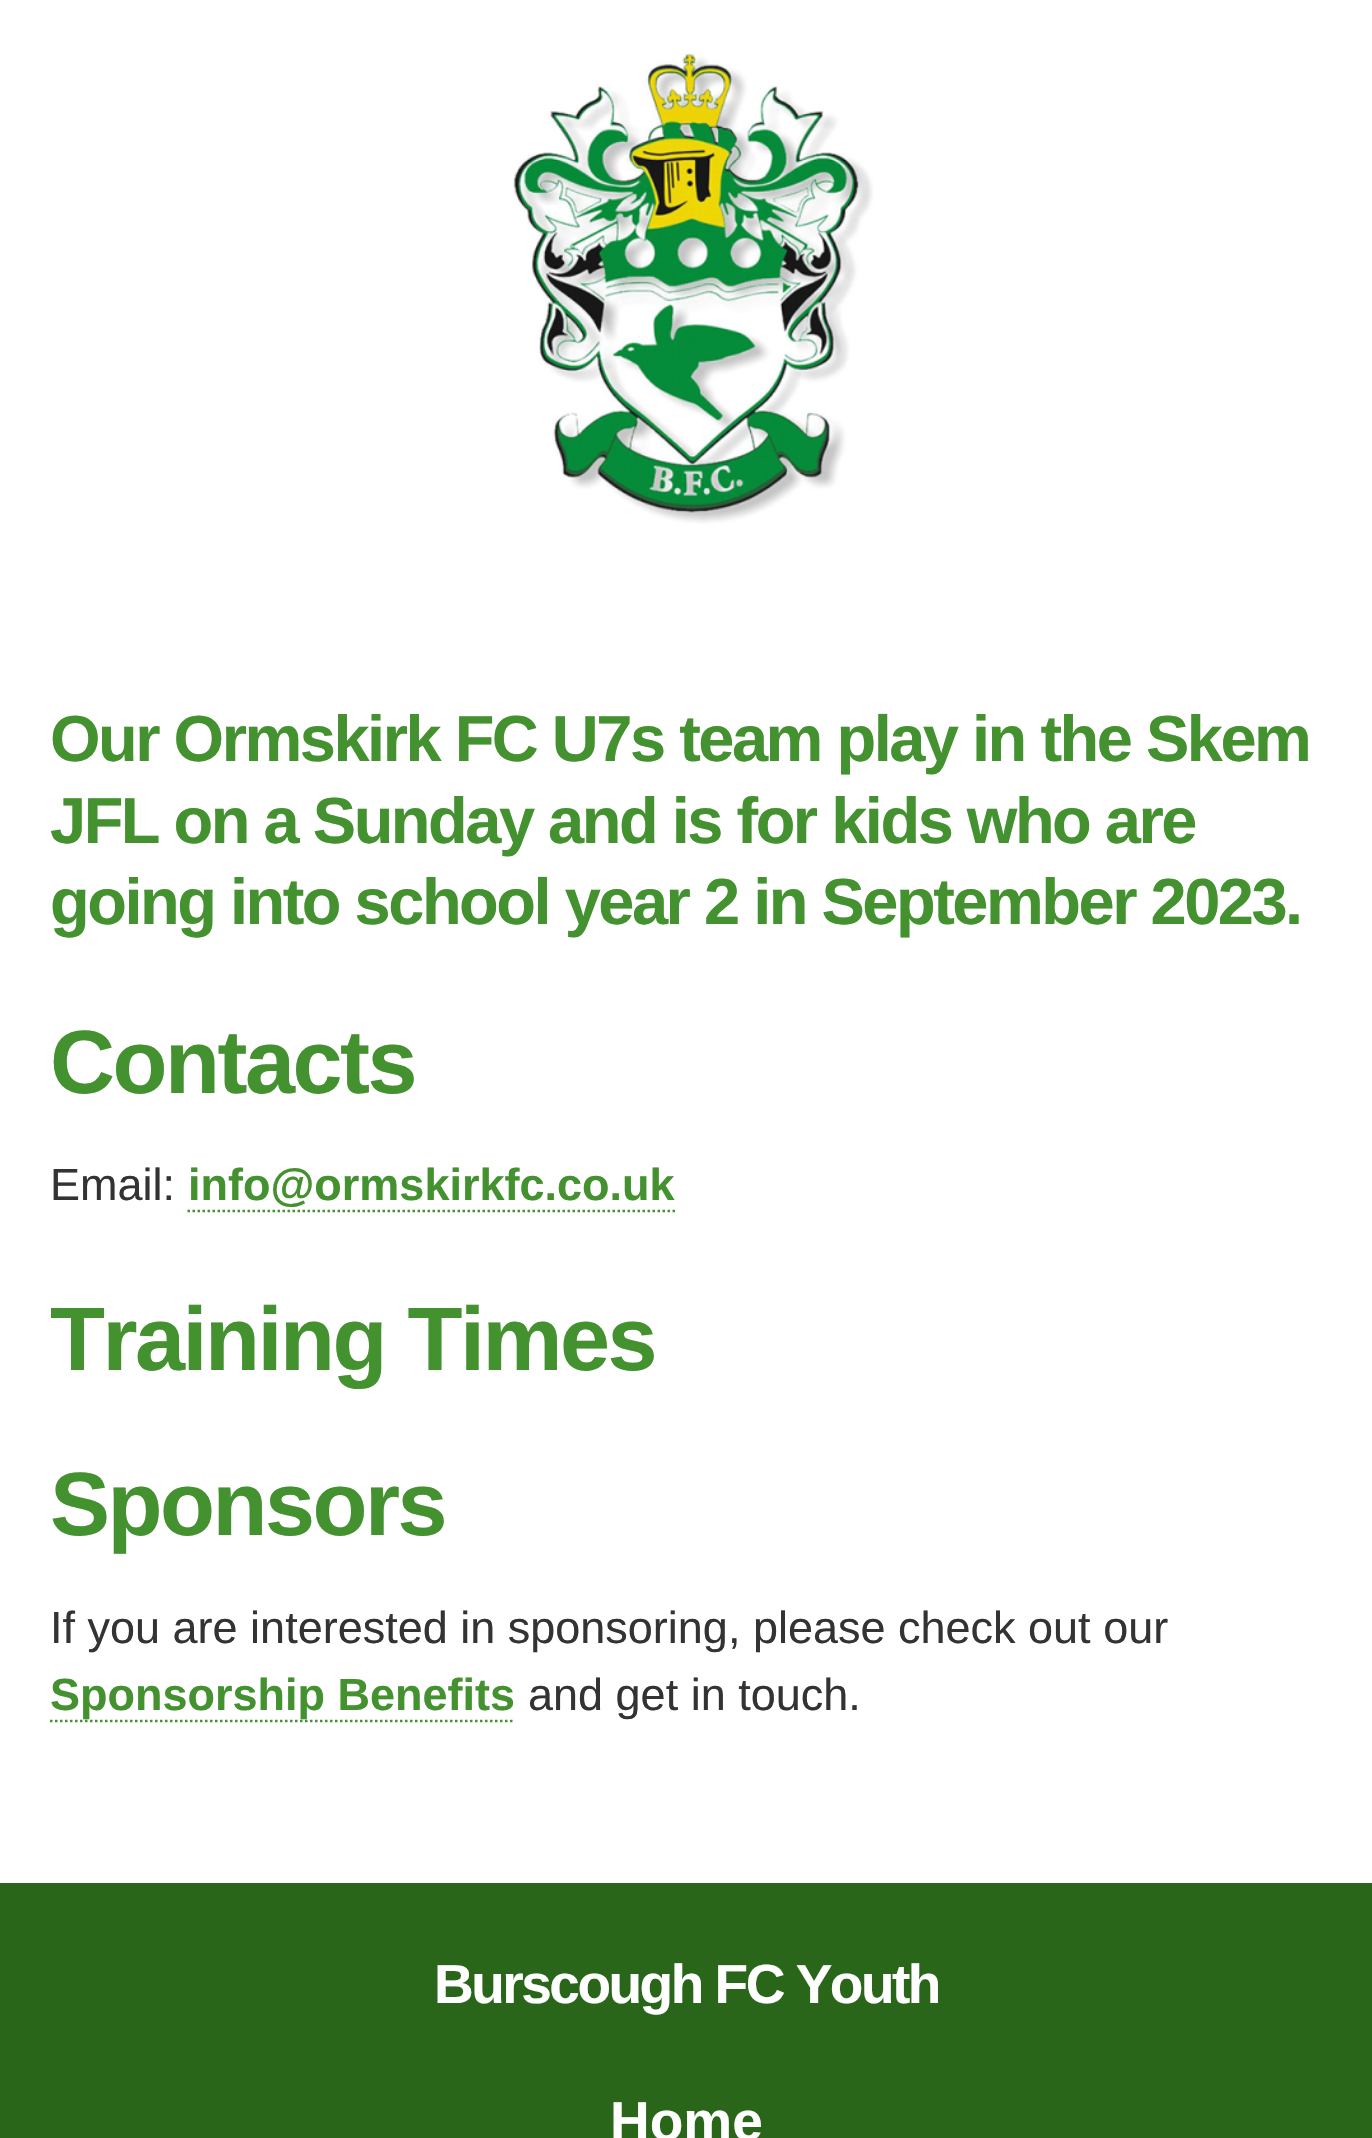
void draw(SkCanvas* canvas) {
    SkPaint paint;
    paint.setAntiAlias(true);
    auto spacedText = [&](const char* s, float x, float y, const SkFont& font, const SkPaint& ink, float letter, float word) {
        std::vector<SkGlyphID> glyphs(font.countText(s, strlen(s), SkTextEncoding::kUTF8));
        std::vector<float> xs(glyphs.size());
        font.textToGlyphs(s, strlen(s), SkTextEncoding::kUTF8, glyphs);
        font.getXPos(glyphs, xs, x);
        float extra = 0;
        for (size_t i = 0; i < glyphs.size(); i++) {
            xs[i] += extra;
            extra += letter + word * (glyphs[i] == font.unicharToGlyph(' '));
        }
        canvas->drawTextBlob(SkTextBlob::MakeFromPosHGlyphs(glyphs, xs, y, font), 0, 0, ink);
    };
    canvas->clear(0xFFFFFFFF);
    canvas->drawImageRect(SkImages::DeferredFromEncodedData(SkData::MakeFromFileName("img1.png")), SkRect::MakeXYWH(513, 53, 360, 471), SkSamplingOptions());
    SkFont font1(fontMgr->matchFamilyStyle("Liberation Sans", SkFontStyle::Bold()), 65);
    font1.setSubpixel(true);
    paint.setColor(0xFF449130);
    spacedText("Our Ormskirk FC U7s team play in the Skem", 50, 761, font1, paint, -2.5f, 0);
    spacedText("JFL on a Sunday and is for kids who are", 50, 843, font1, paint, -2.5f, 0);
    spacedText("going into school year 2 in September 2023.", 50, 924, font1, paint, -2.5f, 0);
    SkFont font2(fontMgr->matchFamilyStyle("Liberation Sans", SkFontStyle::Bold()), 90);
    font2.setSubpixel(true);
    spacedText("Contacts", 50, 1093, font2, paint, -2.5f, 0);
    SkFont font3(fontMgr->matchFamilyStyle("Liberation Sans", SkFontStyle::Normal()), 45);
    font3.setSubpixel(true);
    paint.setColor(0xFF333333);
    canvas->drawString("Email:", 50, 1200, font3, paint);
    SkFont font4(fontMgr->matchFamilyStyle("Liberation Sans", SkFontStyle::Bold()), 45);
    font4.setSubpixel(true);
    paint.setColor(0xFF449130);
    canvas->drawString("info@ormskirkfc.co.uk", 188, 1200, font4, paint);
    paint.setStyle(SkPaint::kStroke_Style);
    paint.setStrokeWidth(2.5f);
    paint.setPathEffect(SkDashPathEffect::Make({{2.5f, 2.5f}}, 0));
    canvas->drawPath(SkPathBuilder().moveTo(187.5f, 1211).lineTo(675, 1211).detach(), paint);
    paint.setPathEffect(nullptr);
    paint.setStyle(SkPaint::kFill_Style);
    spacedText("Training Times", 50, 1370, font2, paint, -2.5f, 0);
    spacedText("Sponsors", 50, 1535, font2, paint, -2.5f, 0);
    paint.setColor(0xFF333333);
    canvas->drawString("If you are interested in sponsoring, please check out our", 50, 1643, font3, paint);
    paint.setStyle(SkPaint::kStroke_Style);
    paint.setColor(0xFF449130);
    paint.setPathEffect(SkDashPathEffect::Make({{2.5f, 2.5f}}, 0));
    canvas->drawPath(SkPathBuilder().moveTo(50, 1721).lineTo(515, 1721).detach(), paint);
    paint.setPathEffect(nullptr);
    paint.setStyle(SkPaint::kFill_Style);
    canvas->drawString("Sponsorship Benefits", 50, 1710, font4, paint);
    paint.setColor(0xFF333333);
    canvas->drawString("and get in touch.", 528, 1710, font3, paint);
    paint.setColor(0xFF29661A);
    canvas->drawRect(SkRect::MakeXYWH(0, 1883, 1372, 255), paint);
    SkFont font5(fontMgr->matchFamilyStyle("Liberation Sans", SkFontStyle::Bold()), 55);
    font5.setSubpixel(true);
    paint.setColor(0xFFFFFFFF);
    spacedText("Burscough FC Youth", 434, 2003, font5, paint, -2.5f, 0);
    canvas->drawString("Home", 610, 2140, font5, paint);
}
